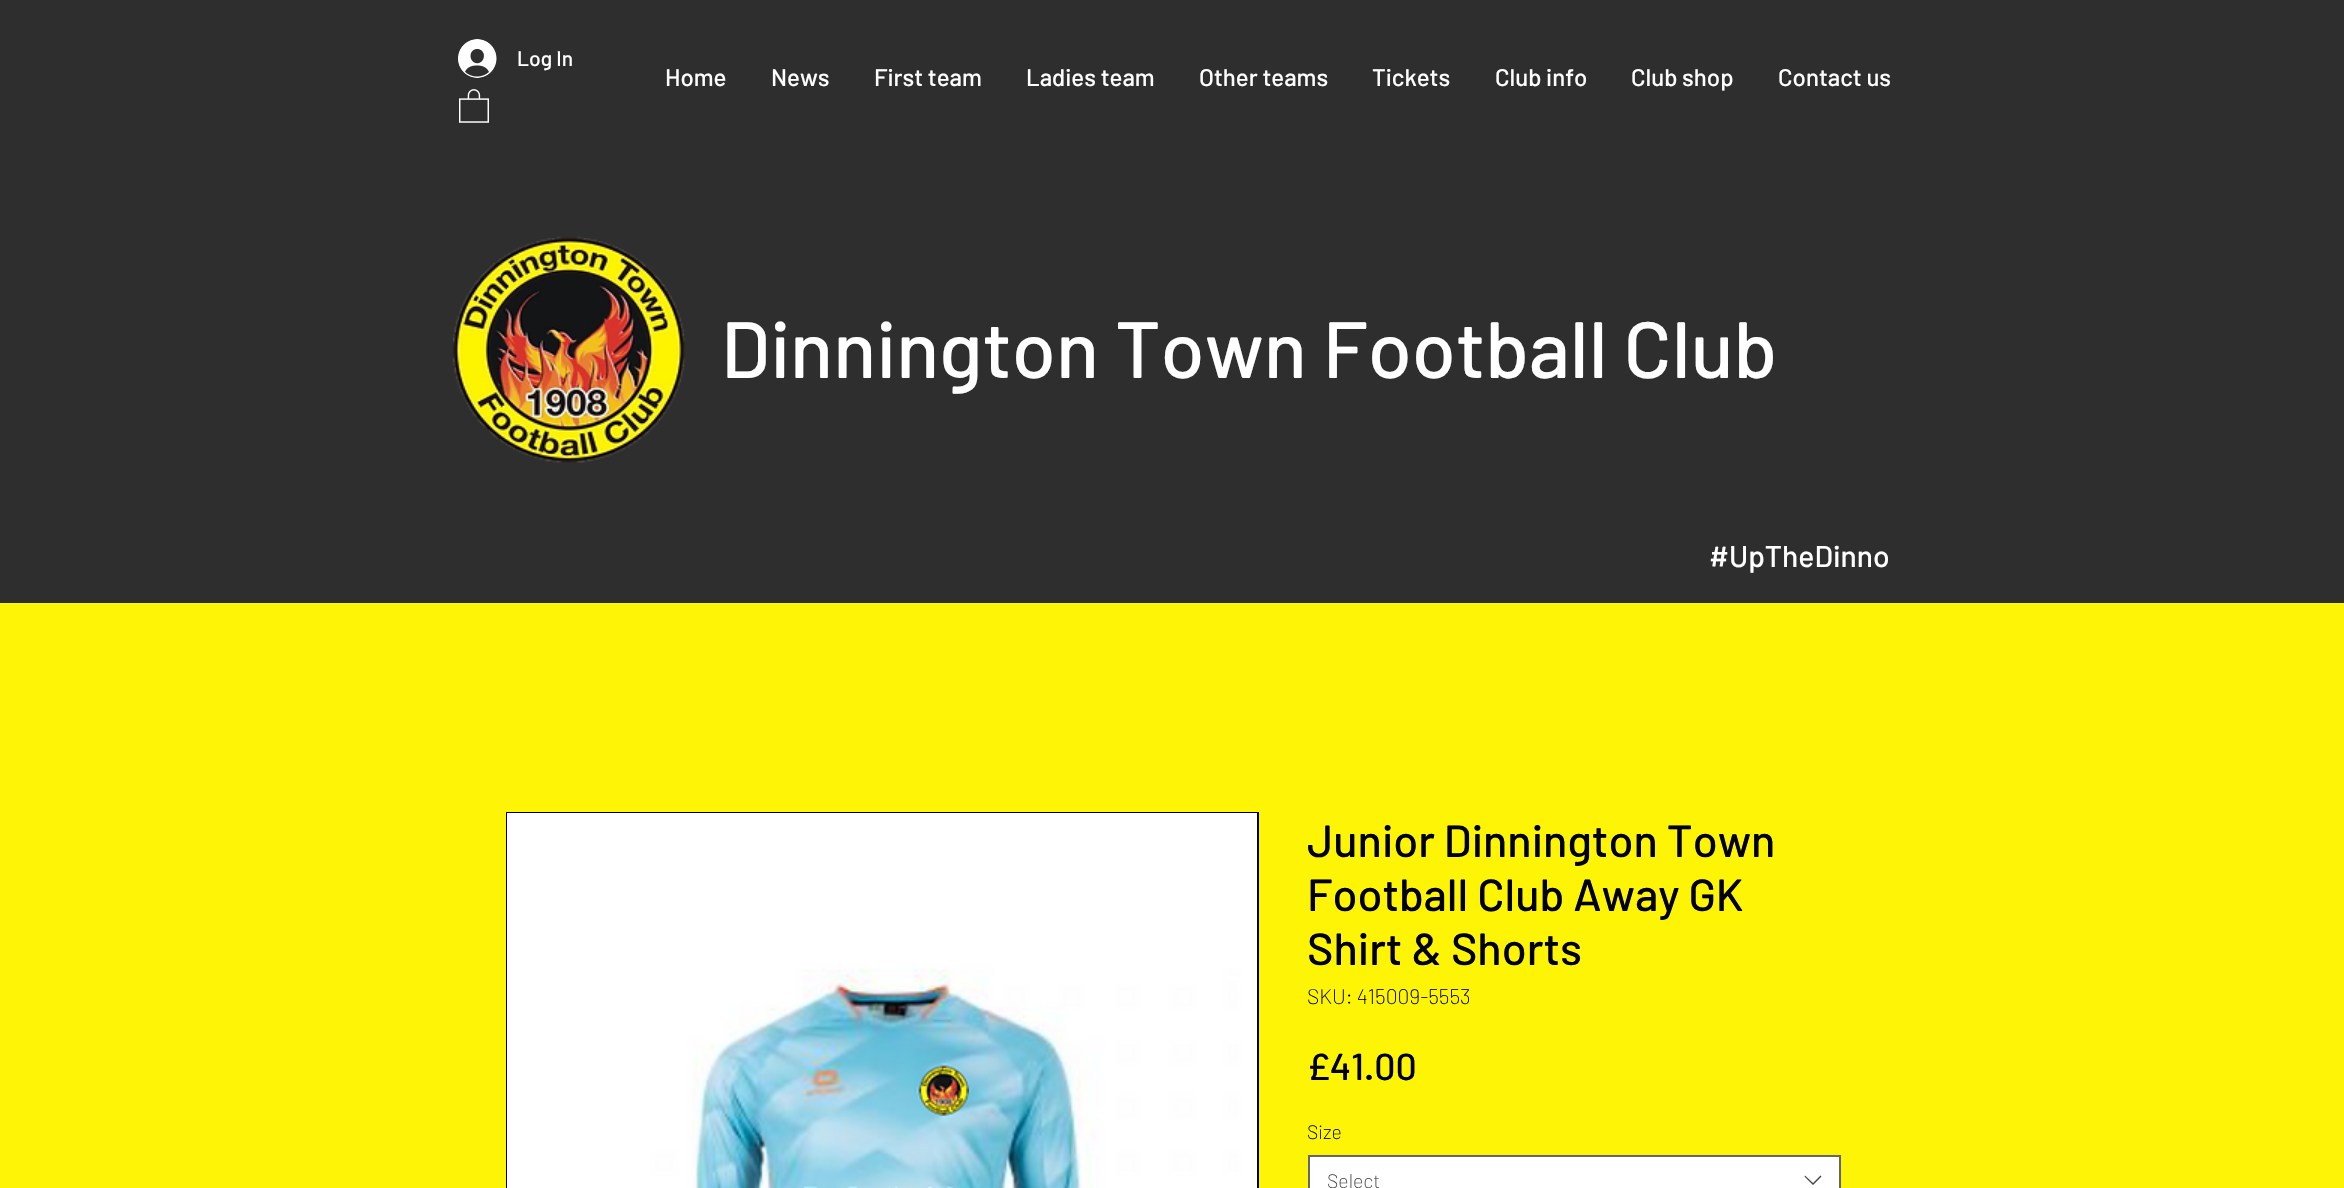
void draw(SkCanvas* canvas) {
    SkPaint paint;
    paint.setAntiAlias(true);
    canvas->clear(0xFFFEF406);
    paint.setColor(0xFF2F2E2E);
    canvas->drawRect(SkRect::MakeXYWH(0, 0, 2344, 603), paint);
    canvas->drawImageRect(SkImages::DeferredFromEncodedData(SkData::MakeFromFileName("img1.png")), SkRect::MakeXYWH(458, 39, 39, 39), SkSamplingOptions());
    SkFont font1(fontMgr->matchFamilyStyle("Barlow", SkFontStyle(500, SkFontStyle::kNormal_Width, SkFontStyle::kUpright_Slant)), 21);
    font1.setSubpixel(true);
    paint.setColor(0xFFFFFFFF);
    canvas->drawString("Log In", 517, 66, font1, paint);
    SkFont font2(fontMgr->matchFamilyStyle("Barlow", SkFontStyle(500, SkFontStyle::kNormal_Width, SkFontStyle::kUpright_Slant)), 24);
    font2.setSubpixel(true);
    canvas->drawString("Home", 665, 86, font2, paint);
    canvas->drawString("News", 771, 86, font2, paint);
    canvas->drawString("First team", 874, 86, font2, paint);
    canvas->drawString("Ladies team", 1026, 86, font2, paint);
    canvas->drawString("Other teams", 1199, 86, font2, paint);
    canvas->drawString("Tickets", 1372, 86, font2, paint);
    canvas->drawString("Club info", 1495, 86, font2, paint);
    canvas->drawString("Club shop", 1631, 86, font2, paint);
    canvas->drawString("Contact us", 1778, 86, font2, paint);
    canvas->drawImageRect(SkImages::DeferredFromEncodedData(SkData::MakeFromFileName("img2.png")), SkRect::MakeXYWH(459, 89, 30, 34), SkSamplingOptions());
    canvas->drawImageRect(SkImages::DeferredFromEncodedData(SkData::MakeFromFileName("img3.png")), SkRect::MakeXYWH(452, 236, 234, 227), SkSamplingOptions());
    SkFont font3(fontMgr->matchFamilyStyle("Barlow", SkFontStyle(500, SkFontStyle::kNormal_Width, SkFontStyle::kUpright_Slant)), 79.5f);
    font3.setSubpixel(true);
    canvas->drawString("Dinnington Town Football Club", 721, 378, font3, paint);
    SkFont font4(fontMgr->matchFamilyStyle("Barlow", SkFontStyle(500, SkFontStyle::kNormal_Width, SkFontStyle::kUpright_Slant)), 30);
    font4.setSubpixel(true);
    canvas->drawString("#UpTheDinno", 1709, 567, font4, paint);
    paint.setStyle(SkPaint::kStroke_Style);
    paint.setStrokeWidth(2);
    paint.setColor(0xFF000000);
    canvas->drawRect(SkRect::MakeXYWH(507, 813, 751, 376), paint);
    canvas->drawImageRect(SkImages::DeferredFromEncodedData(SkData::MakeFromFileName("img4.png")), SkRect::MakeXYWH(507, 813, 750, 375), SkSamplingOptions());
    SkFont font5(fontMgr->matchFamilyStyle("Barlow", SkFontStyle(500, SkFontStyle::kNormal_Width, SkFontStyle::kUpright_Slant)), 45);
    font5.setSubpixel(true);
    paint.setStyle(SkPaint::kFill_Style);
    canvas->drawString("Junior Dinnington Town", 1307, 857, font5, paint);
    canvas->drawString("Football Club Away GK", 1307, 911, font5, paint);
    canvas->drawString("Shirt & Shorts", 1307, 965, font5, paint);
    SkFont font6(fontMgr->matchFamilyStyle("Barlow", SkFontStyle(200, SkFontStyle::kNormal_Width, SkFontStyle::kUpright_Slant)), 21);
    font6.setSubpixel(true);
    canvas->drawString("SKU: 415009-5553", 1307, 1004, font6, paint);
    SkFont font7(fontMgr->matchFamilyStyle("Barlow", SkFontStyle(500, SkFontStyle::kNormal_Width, SkFontStyle::kUpright_Slant)), 37.5f);
    font7.setSubpixel(true);
    canvas->drawString("£41.00", 1307, 1080, font7, paint);
    SkFont font8(fontMgr->matchFamilyStyle("Barlow", SkFontStyle(200, SkFontStyle::kNormal_Width, SkFontStyle::kUpright_Slant)), 19.5f);
    font8.setSubpixel(true);
    canvas->drawString("Size", 1307, 1139, font8, paint);
    paint.setColor(0xFFFFFFFF);
    canvas->drawRect(SkRect::MakeXYWH(1309, 1156, 531, 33), paint);
    paint.setStyle(SkPaint::kStroke_Style);
    paint.setColor(0xFF666666);
    canvas->drawRect(SkRect::MakeXYWH(1309, 1156, 531, 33), paint);
    paint.setStyle(SkPaint::kFill_Style);
    paint.setColor(0xFF444444);
    canvas->drawString("Select", 1327, 1188, font8, paint);
    canvas->drawPath(SkPathBuilder(SkPathFillType::kEvenOdd).moveTo(1820.5f, 1175.5f).lineTo(1821.5f, 1176.5f).lineTo(1813, 1185).lineTo(1804.5f, 1176.5f).lineTo(1805, 1175.5f).lineTo(1813, 1183).close().detach(), paint);
}
